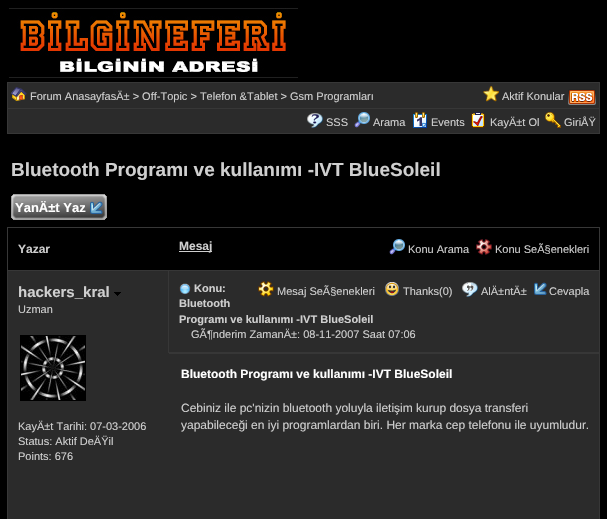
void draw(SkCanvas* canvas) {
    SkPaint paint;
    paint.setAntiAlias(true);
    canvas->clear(0xFF000000);
    canvas->drawImageRect(SkImages::DeferredFromEncodedData(SkData::MakeFromFileName("img1.png")), SkRect::MakeXYWH(9, 8, 289, 70), SkSamplingOptions());
    paint.setColor(0xFF373737);
    canvas->drawRect(SkRect::MakeXYWH(7, 82, 593, 52), paint);
    paint.setColor(0xFF2B2B2B);
    canvas->drawRect(SkRect::MakeXYWH(8, 83, 591, 25), paint);
    canvas->drawImageRect(SkImages::DeferredFromEncodedData(SkData::MakeFromFileName("img2.png")), SkRect::MakeXYWH(11, 87, 16, 14), SkSamplingOptions());
    SkFont font1(fontMgr->matchFamilyStyle("Liberation Sans", SkFontStyle::Normal()), 11);
    font1.setSubpixel(true);
    paint.setColor(0xFFCFCFCF);
    canvas->drawString("Forum AnasayfasÄ± > Off-Topic > Telefon &Tablet > Gsm Programları", 30, 100, font1, paint);
    canvas->drawImageRect(SkImages::DeferredFromEncodedData(SkData::MakeFromFileName("img3.png")), SkRect::MakeXYWH(483, 86, 16, 16), SkSamplingOptions());
    canvas->drawString("Aktif Konular", 502, 100, font1, paint);
    canvas->drawImageRect(SkImages::DeferredFromEncodedData(SkData::MakeFromFileName("img4.png")), SkRect::MakeXYWH(568, 89, 28, 16), SkSamplingOptions());
    paint.setColor(0xFF2B2B2B);
    canvas->drawRect(SkRect::MakeXYWH(8, 109, 591, 24), paint);
    canvas->drawImageRect(SkImages::DeferredFromEncodedData(SkData::MakeFromFileName("img5.png")), SkRect::MakeXYWH(307, 113, 16, 15), SkSamplingOptions());
    paint.setColor(0xFFCFCFCF);
    canvas->drawString("SSS", 326, 126, font1, paint);
    canvas->drawImageRect(SkImages::DeferredFromEncodedData(SkData::MakeFromFileName("img6.png")), SkRect::MakeXYWH(354, 112, 16, 16), SkSamplingOptions());
    canvas->drawString("Arama", 373, 126, font1, paint);
    canvas->drawImageRect(SkImages::DeferredFromEncodedData(SkData::MakeFromFileName("img7.png")), SkRect::MakeXYWH(413, 112, 14, 16), SkSamplingOptions());
    canvas->drawString("Events", 431, 126, font1, paint);
    canvas->drawImageRect(SkImages::DeferredFromEncodedData(SkData::MakeFromFileName("img8.png")), SkRect::MakeXYWH(471, 112, 14, 16), SkSamplingOptions());
    canvas->drawString("KayÄ±t Ol", 490, 126, font1, paint);
    canvas->drawImageRect(SkImages::DeferredFromEncodedData(SkData::MakeFromFileName("img9.png")), SkRect::MakeXYWH(545, 112, 16, 16), SkSamplingOptions());
    canvas->drawString("GiriÅŸ", 564, 126, font1, paint);
    SkFont font2(fontMgr->matchFamilyStyle("Liberation Sans", SkFontStyle::Bold()), 19);
    font2.setSubpixel(true);
    canvas->drawString("Bluetooth Programı ve kullanımı -IVT BlueSoleil", 11, 176, font2, paint);
    canvas->drawImageRect(SkImages::DeferredFromEncodedData(SkData::MakeFromFileName("img10.png")), SkRect::MakeXYWH(11, 194, 96, 26), SkSamplingOptions());
    SkFont font3(fontMgr->matchFamilyStyle("Liberation Sans", SkFontStyle::Bold()), 13);
    font3.setSubpixel(true);
    paint.setColor(0xFFFFFFFF);
    canvas->drawString("YanÄ±t Yaz", 15, 212, font3, paint);
    canvas->drawImageRect(SkImages::DeferredFromEncodedData(SkData::MakeFromFileName("img11.png")), SkRect::MakeXYWH(90, 201, 13, 13), SkSamplingOptions());
    paint.setColor(0xFF373737);
    canvas->drawRect(SkRect::MakeXYWH(7, 227, 593, 292), paint);
    paint.setColor(0xFF000000);
    canvas->drawRect(SkRect::MakeXYWH(8, 228, 591, 42), paint);
    SkFont font4(fontMgr->matchFamilyStyle("Liberation Sans", SkFontStyle::Bold()), 12);
    font4.setSubpixel(true);
    paint.setColor(0xFFCFCFCF);
    canvas->drawString("Yazar", 18, 253, font4, paint);
    canvas->drawRect(SkRect::MakeXYWH(179, 251, 33, 1), paint);
    canvas->drawString("Mesaj", 179, 250, font4, paint);
    canvas->drawImageRect(SkImages::DeferredFromEncodedData(SkData::MakeFromFileName("img12.png")), SkRect::MakeXYWH(389, 239, 16, 16), SkSamplingOptions());
    canvas->drawString("Konu Arama", 408, 253, font1, paint);
    canvas->drawImageRect(SkImages::DeferredFromEncodedData(SkData::MakeFromFileName("img13.png")), SkRect::MakeXYWH(476, 239, 16, 16), SkSamplingOptions());
    canvas->drawString("Konu SeÃ§enekleri", 495, 253, font1, paint);
    paint.setColor(0xFF2B2B2B);
    canvas->drawRect(SkRect::MakeXYWH(8, 271, 160, 82), paint);
    SkFont font5(fontMgr->matchFamilyStyle("Liberation Sans", SkFontStyle::Bold()), 15);
    font5.setSubpixel(true);
    paint.setColor(0xFFCFCFCF);
    canvas->drawString("hackers_kral", 18, 297, font5, paint);
    canvas->drawImageRect(SkImages::DeferredFromEncodedData(SkData::MakeFromFileName("img14.png")), SkRect::MakeXYWH(114, 292, 7, 4), SkSamplingOptions());
    canvas->drawString("Uzman", 18, 313, font1, paint);
    paint.setColor(0xFF2B2B2B);
    canvas->drawRect(SkRect::MakeXYWH(8, 353, 591, 166), paint);
    paint.setStyle(SkPaint::kStroke_Style);
    paint.setStrokeWidth(1);
    paint.setColor(0xFF000000);
    canvas->drawRect(SkRect::MakeXYWH(20.5f, 335.5f, 65, 65), paint);
    canvas->drawImageRect(SkImages::DeferredFromEncodedData(SkData::MakeFromFileName("img15.png")), SkRect::MakeXYWH(21, 336, 64, 64), SkSamplingOptions());
    paint.setStyle(SkPaint::kFill_Style);
    paint.setColor(0xFFCFCFCF);
    canvas->drawString("KayÄ±t Tarihi: 07-03-2006", 18, 430, font1, paint);
    canvas->drawString("Status: Aktif DeÄŸil", 18, 445, font1, paint);
    canvas->drawString("Points: 676", 18, 460, font1, paint);
    paint.setColor(0xFF2B2B2B);
    canvas->drawRect(SkRect::MakeXYWH(169, 271, 430, 81), paint);
    canvas->drawImageRect(SkImages::DeferredFromEncodedData(SkData::MakeFromFileName("img16.png")), SkRect::MakeXYWH(179, 283, 12, 12), SkSamplingOptions());
    SkFont font6(fontMgr->matchFamilyStyle("Liberation Sans", SkFontStyle::Bold()), 11);
    font6.setSubpixel(true);
    paint.setColor(0xFFCFCFCF);
    canvas->drawString("Konu:", 194, 292, font6, paint);
    canvas->drawImageRect(SkImages::DeferredFromEncodedData(SkData::MakeFromFileName("img17.png")), SkRect::MakeXYWH(258, 281, 16, 16), SkSamplingOptions());
    canvas->drawString("Mesaj SeÃ§enekleri", 277, 295, font1, paint);
    canvas->drawImageRect(SkImages::DeferredFromEncodedData(SkData::MakeFromFileName("img18.png")), SkRect::MakeXYWH(385, 282, 14, 14), SkSamplingOptions());
    canvas->drawString("Thanks(0)", 403, 295, font1, paint);
    canvas->drawImageRect(SkImages::DeferredFromEncodedData(SkData::MakeFromFileName("img19.png")), SkRect::MakeXYWH(462, 282, 16, 15), SkSamplingOptions());
    canvas->drawString("AlÄ±ntÄ±", 481, 295, font1, paint);
    canvas->drawImageRect(SkImages::DeferredFromEncodedData(SkData::MakeFromFileName("img20.png")), SkRect::MakeXYWH(534, 282, 13, 13), SkSamplingOptions());
    canvas->drawString("Cevapla", 549, 295, font1, paint);
    canvas->drawString("Bluetooth", 179, 307, font6, paint);
    canvas->drawString("Programı ve kullanımı -IVT BlueSoleil", 179, 323, font6, paint);
    canvas->drawString("GÃ¶nderim ZamanÄ±: 08-11-2007 Saat 07:06", 191, 338, font1, paint);
    paint.setColor(0xFF373737);
    canvas->drawRect(SkRect::MakeXYWH(169, 353, 430, 1), paint);
    paint.setColor(0xFFFFFFFF);
    canvas->drawString("Bluetooth Programı ve kullanımı -IVT BlueSoleil", 181, 378, font4, paint);
    SkFont font7(fontMgr->matchFamilyStyle("Liberation Sans", SkFontStyle::Normal()), 12);
    font7.setSubpixel(true);
    paint.setColor(0xFFCFCFCF);
    canvas->drawString("Cebiniz ile pc'nizin bluetooth yoluyla iletişim kurup dosya transferi", 181, 412, font7, paint);
    canvas->drawString("yapabileceği en iyi programlardan biri. Her marka cep telefonu ile uyumludur.", 181, 429, font7, paint);
}
